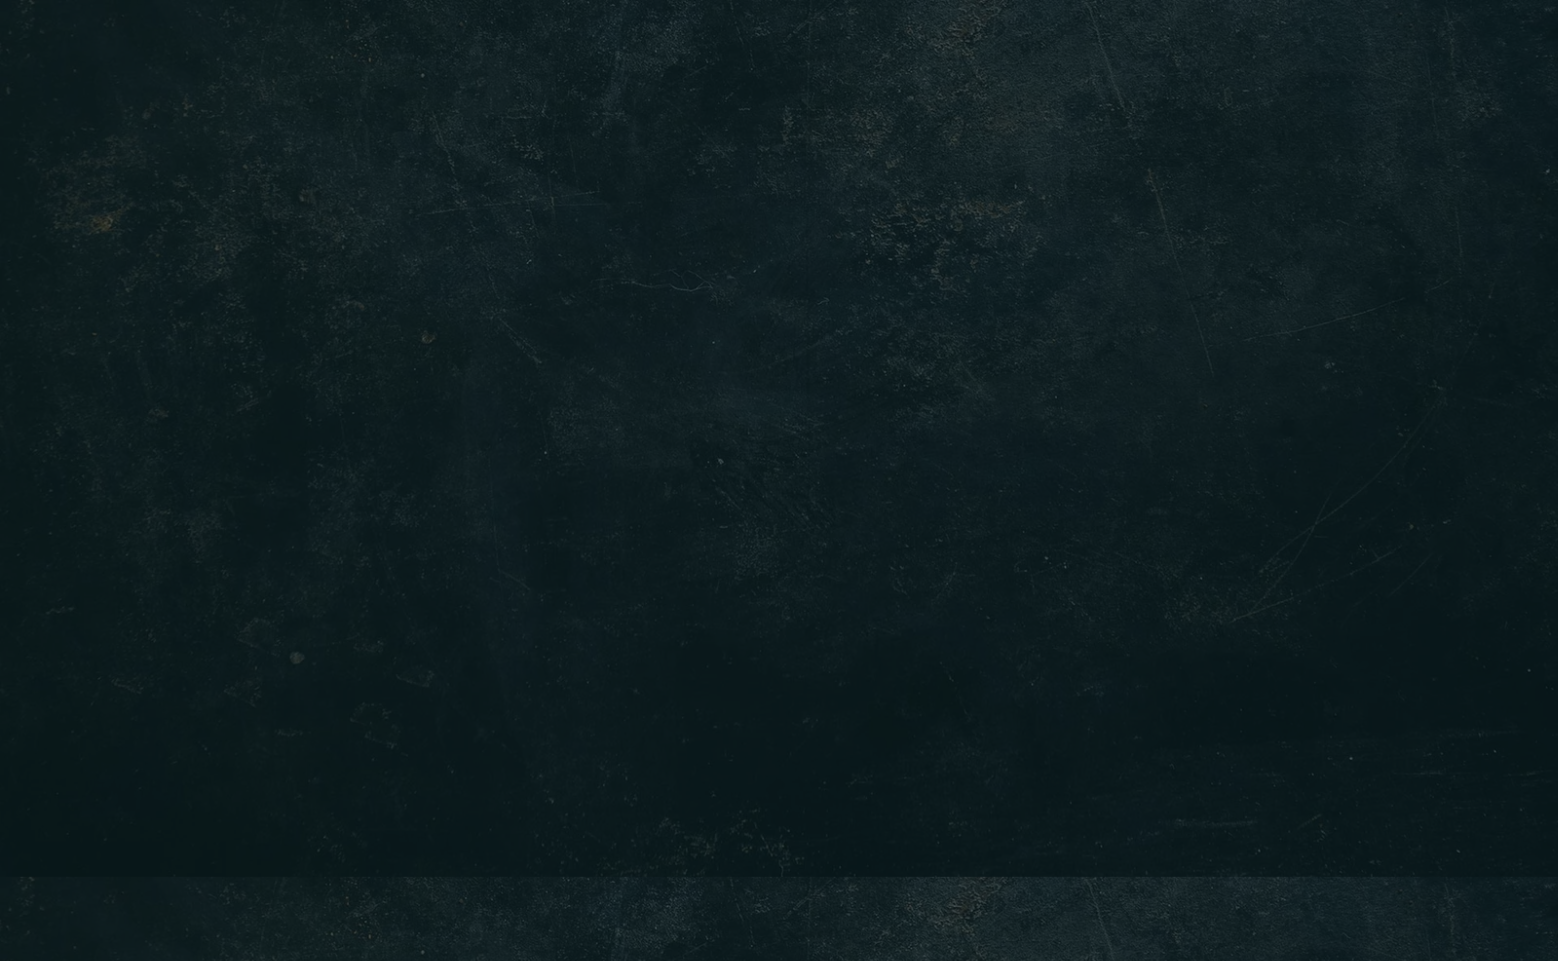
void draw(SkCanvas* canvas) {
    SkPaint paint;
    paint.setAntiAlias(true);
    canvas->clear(0xFFFFFFFF);
    canvas->drawImageRect(SkImages::DeferredFromEncodedData(SkData::MakeFromFileName("img1.png")), SkRect::MakeXYWH(0, 0, 1558, 961), SkSamplingOptions());
}
